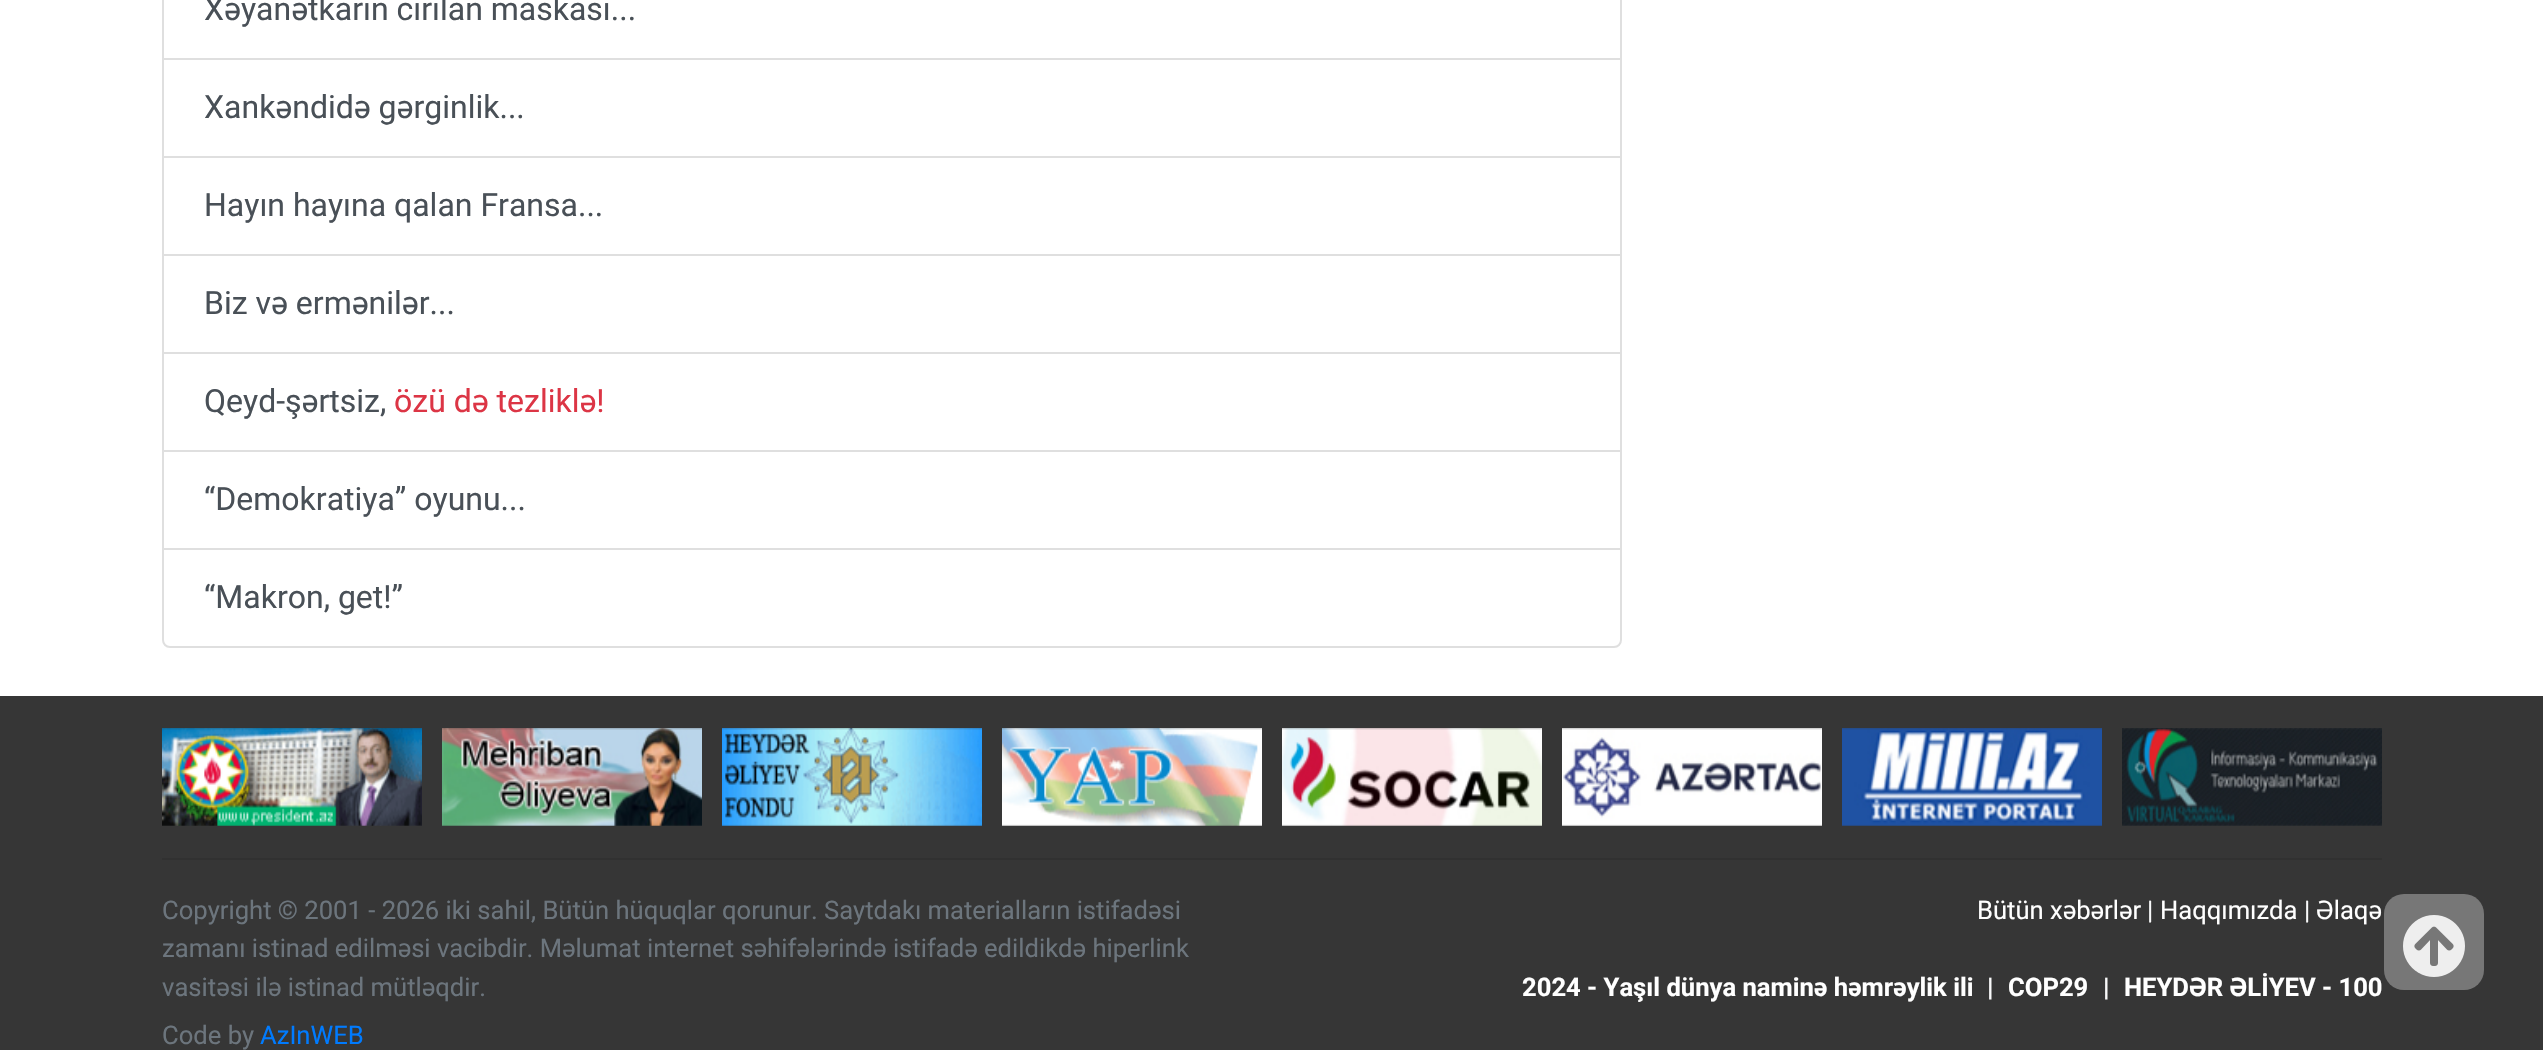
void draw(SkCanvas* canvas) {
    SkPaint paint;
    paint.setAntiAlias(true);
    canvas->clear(0xFFFFFFFF);
    paint.setStyle(SkPaint::kStroke_Style);
    paint.setStrokeWidth(2);
    paint.setColor(0xFFDFDFDF);
    canvas->drawRect(SkRect::MakeXYWH(163, -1, 1458, 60), paint);
    SkFont font1(fontMgr->matchFamilyStyle("Roboto", SkFontStyle::Normal()), 32);
    font1.setSubpixel(true);
    paint.setStyle(SkPaint::kFill_Style);
    paint.setColor(0xFF495057);
    canvas->drawString("Xəyanətkarın cırılan maskası...", 204, 20, font1, paint);
    paint.setStyle(SkPaint::kStroke_Style);
    paint.setColor(0xFFDFDFDF);
    canvas->drawRect(SkRect::MakeXYWH(163, 59, 1458, 98), paint);
    paint.setStyle(SkPaint::kFill_Style);
    paint.setColor(0xFF495057);
    canvas->drawString("Xankəndidə gərginlik...", 204, 118, font1, paint);
    paint.setStyle(SkPaint::kStroke_Style);
    paint.setColor(0xFFDFDFDF);
    canvas->drawRect(SkRect::MakeXYWH(163, 157, 1458, 98), paint);
    paint.setStyle(SkPaint::kFill_Style);
    paint.setColor(0xFF495057);
    canvas->drawString("Hayın hayına qalan Fransa...", 204, 216, font1, paint);
    paint.setStyle(SkPaint::kStroke_Style);
    paint.setColor(0xFFDFDFDF);
    canvas->drawRect(SkRect::MakeXYWH(163, 255, 1458, 98), paint);
    paint.setStyle(SkPaint::kFill_Style);
    paint.setColor(0xFF495057);
    canvas->drawString("Biz və ermənilər...", 204, 314, font1, paint);
    paint.setStyle(SkPaint::kStroke_Style);
    paint.setColor(0xFFDFDFDF);
    canvas->drawRect(SkRect::MakeXYWH(163, 353, 1458, 98), paint);
    paint.setStyle(SkPaint::kFill_Style);
    paint.setColor(0xFF495057);
    canvas->drawString("Qeyd-şərtsiz,", 204, 412, font1, paint);
    paint.setColor(0xFFDC3545);
    canvas->drawString("özü də tezliklə!", 394, 412, font1, paint);
    paint.setStyle(SkPaint::kStroke_Style);
    paint.setColor(0xFFDFDFDF);
    canvas->drawRect(SkRect::MakeXYWH(163, 451, 1458, 98), paint);
    paint.setStyle(SkPaint::kFill_Style);
    paint.setColor(0xFF495057);
    canvas->drawString("“Demokratiya” oyunu...", 204, 510, font1, paint);
    paint.setColor(0xFFFFFFFF);
    canvas->drawPath(SkPathBuilder().moveTo(163, 549).lineTo(1621, 549).lineTo(1621, 640).cubicTo(1621, 644, 1618, 647, 1614, 647).lineTo(170, 647).cubicTo(166, 647, 163, 644, 163, 640).close().detach(), paint);
    paint.setStyle(SkPaint::kStroke_Style);
    paint.setColor(0xFFDFDFDF);
    canvas->drawPath(SkPathBuilder().moveTo(163, 549).lineTo(1621, 549).lineTo(1621, 640).cubicTo(1621, 644, 1618, 647, 1614, 647).lineTo(170, 647).cubicTo(166, 647, 163, 644, 163, 640).close().detach(), paint);
    paint.setStyle(SkPaint::kFill_Style);
    paint.setColor(0xFF495057);
    canvas->drawString("“Makron, get!”", 204, 608, font1, paint);
    paint.setColor(0xFF363636);
    canvas->drawRect(SkRect::MakeXYWH(0, 696, 2543, 354), paint);
    canvas->drawImageRect(SkImages::DeferredFromEncodedData(SkData::MakeFromFileName("img1.png")), SkRect::MakeXYWH(162, 728, 260, 98), SkSamplingOptions());
    canvas->drawImageRect(SkImages::DeferredFromEncodedData(SkData::MakeFromFileName("img2.png")), SkRect::MakeXYWH(442, 728, 260, 98), SkSamplingOptions());
    canvas->drawImageRect(SkImages::DeferredFromEncodedData(SkData::MakeFromFileName("img3.png")), SkRect::MakeXYWH(722, 728, 260, 98), SkSamplingOptions());
    canvas->drawImageRect(SkImages::DeferredFromEncodedData(SkData::MakeFromFileName("img4.png")), SkRect::MakeXYWH(1002, 728, 260, 98), SkSamplingOptions());
    canvas->drawImageRect(SkImages::DeferredFromEncodedData(SkData::MakeFromFileName("img5.png")), SkRect::MakeXYWH(1282, 728, 260, 98), SkSamplingOptions());
    canvas->drawImageRect(SkImages::DeferredFromEncodedData(SkData::MakeFromFileName("img6.png")), SkRect::MakeXYWH(1562, 728, 260, 98), SkSamplingOptions());
    canvas->drawImageRect(SkImages::DeferredFromEncodedData(SkData::MakeFromFileName("img7.png")), SkRect::MakeXYWH(1842, 728, 260, 98), SkSamplingOptions());
    canvas->drawImageRect(SkImages::DeferredFromEncodedData(SkData::MakeFromFileName("img8.png")), SkRect::MakeXYWH(2122, 728, 260, 98), SkSamplingOptions());
    paint.setColor(0xFF313131);
    canvas->drawRect(SkRect::MakeXYWH(162, 858, 2220, 2), paint);
    SkFont font2(fontMgr->matchFamilyStyle("Roboto", SkFontStyle::Normal()), 25.6f);
    font2.setSubpixel(true);
    paint.setColor(0xFF6C757D);
    canvas->drawString("Copyright © 2001 - 2026 iki sahil, Bütün hüquqlar qorunur. Saytdakı materialların istifadəsi", 162, 919, font2, paint);
    canvas->drawString("zamanı istinad edilməsi vacibdir. Məlumat internet səhifələrində istifadə edildikdə hiperlink", 162, 957, font2, paint);
    canvas->drawString("vasitəsi ilə istinad mütləqdir.", 162, 996, font2, paint);
    canvas->drawString("Code by", 162, 1044, font2, paint);
    paint.setColor(0xFF007BFF);
    canvas->drawString("AzInWEB", 260, 1044, font2, paint);
    paint.setColor(0xFFFFFFFF);
    canvas->drawString("Bütün xəbərlər", 1977, 919, font2, paint);
    paint.setColor(0xFFF8F9FA);
    canvas->drawString("|", 2147, 919, font2, paint);
    paint.setColor(0xFFFFFFFF);
    canvas->drawString("Haqqımızda", 2160, 919, font2, paint);
    paint.setColor(0xFFF8F9FA);
    canvas->drawString("|", 2304, 919, font2, paint);
    paint.setColor(0xFFFFFFFF);
    canvas->drawString("Əlaqə", 2316, 919, font2, paint);
    SkFont font3(fontMgr->matchFamilyStyle("Roboto", SkFontStyle::Bold()), 25.6f);
    font3.setSubpixel(true);
    canvas->drawString("2024 - Yaşıl dünya naminə həmrəylik ili", 1522, 996, font3, paint);
    paint.setColor(0xFFF8F9FA);
    canvas->drawString("|", 1987, 996, font3, paint);
    paint.setColor(0xFFFFFFFF);
    canvas->drawString("COP29", 2008, 996, font3, paint);
    paint.setColor(0xFFF8F9FA);
    canvas->drawString("|", 2103, 996, font3, paint);
    paint.setColor(0xFFFFFFFF);
    canvas->drawString("HEYDƏR ƏLİYEV - 100", 2124, 996, font3, paint);
    paint.setColor(0xFF777777);
    canvas->drawRoundRect(SkRect::MakeXYWH(2384, 894, 100, 96), 20, 20, paint);
    canvas->drawImageRect(SkImages::DeferredFromEncodedData(SkData::MakeFromFileName("img9.png")), SkRect::MakeXYWH(2403, 915, 62, 62), SkSamplingOptions());
}
